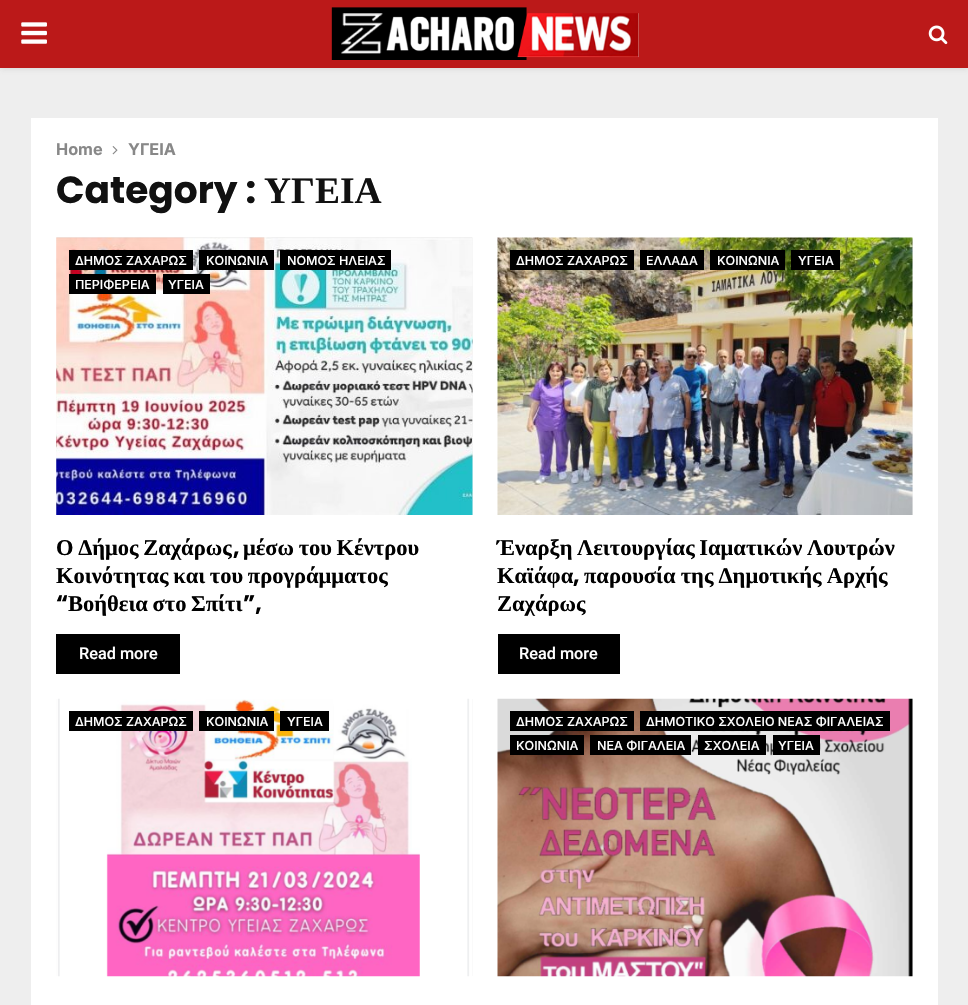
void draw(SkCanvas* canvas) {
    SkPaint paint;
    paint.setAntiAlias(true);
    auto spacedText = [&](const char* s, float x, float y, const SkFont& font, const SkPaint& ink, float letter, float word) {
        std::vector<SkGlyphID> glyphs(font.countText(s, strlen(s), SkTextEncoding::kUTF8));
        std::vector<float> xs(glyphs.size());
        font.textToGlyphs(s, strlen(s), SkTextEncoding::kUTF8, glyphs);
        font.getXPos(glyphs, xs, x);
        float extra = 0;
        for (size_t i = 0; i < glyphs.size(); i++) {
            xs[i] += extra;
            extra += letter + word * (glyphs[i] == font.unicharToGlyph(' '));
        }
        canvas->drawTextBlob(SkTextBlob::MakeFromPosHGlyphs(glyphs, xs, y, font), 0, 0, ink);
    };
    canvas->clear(0xFFEEEEEE);
    paint.setColor(0x75BEBEBE);
    paint.setMaskFilter(SkMaskFilter::MakeBlur(kNormal_SkBlurStyle, 3));
    canvas->drawRect(SkRect::MakeXYWH(0, 1, 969, 68), paint);
    paint.setMaskFilter(nullptr);
    paint.setColor(0xFFBB1919);
    canvas->drawRect(SkRect::MakeXYWH(0, 0, 968, 68), paint);
    canvas->drawImageRect(SkImages::DeferredFromEncodedData(SkData::MakeFromFileName("img1.png")), SkRect::MakeXYWH(21, 22, 26, 22), SkSamplingOptions());
    canvas->drawImageRect(SkImages::DeferredFromEncodedData(SkData::MakeFromFileName("img2.png")), SkRect::MakeXYWH(331, 7, 308, 53), SkSamplingOptions());
    canvas->drawImageRect(SkImages::DeferredFromEncodedData(SkData::MakeFromFileName("img3.png")), SkRect::MakeXYWH(928, 25, 20, 20), SkSamplingOptions());
    paint.setColor(0xFFFFFFFF);
    canvas->drawRect(SkRect::MakeXYWH(31, 118, 907, 887), paint);
    SkFont font1(fontMgr->matchFamilyStyle("Inter", SkFontStyle::Bold()), 16.25f);
    font1.setSubpixel(true);
    paint.setColor(0xFF888888);
    canvas->drawString("Home", 56, 155, font1, paint);
    canvas->drawImageRect(SkImages::DeferredFromEncodedData(SkData::MakeFromFileName("img4.png")), SkRect::MakeXYWH(112, 146, 6, 9), SkSamplingOptions());
    canvas->drawString("ΥΓΕΙΑ", 128, 155, font1, paint);
    SkFont font2(fontMgr->matchFamilyStyle("Poppins", SkFontStyle::Bold()), 37.5f);
    font2.setSubpixel(true);
    paint.setColor(0xFF111111);
    canvas->drawString("Category :", 56, 203, font2, paint);
    SkFont font3(fontMgr->matchFamilyStyle("Liberation Serif", SkFontStyle::Bold()), 37.5f);
    font3.setSubpixel(true);
    canvas->drawString("ΥΓΕΙΑ", 264, 203, font3, paint);
    paint.setColor(0xFFF5F5F5);
    canvas->drawRect(SkRect::MakeXYWH(56, 238, 417, 277), paint);
    canvas->drawImageRect(SkImages::DeferredFromEncodedData(SkData::MakeFromFileName("img5.png")), SkRect::MakeXYWH(56, 237, 417, 278), SkSamplingOptions());
    paint.setColor(0xFF000000);
    canvas->drawRect(SkRect::MakeXYWH(69, 250, 124, 20), paint);
    SkFont font4(fontMgr->matchFamilyStyle("Inter", SkFontStyle(500, SkFontStyle::kNormal_Width, SkFontStyle::kUpright_Slant)), 12.5f);
    font4.setSubpixel(true);
    paint.setColor(0xFFFFFFFF);
    canvas->drawString("ΔΗΜΟΣ ΖΑΧΑΡΩΣ", 75, 265, font4, paint);
    paint.setColor(0xFF000000);
    canvas->drawRect(SkRect::MakeXYWH(199, 250, 75, 20), paint);
    paint.setColor(0xFFFFFFFF);
    canvas->drawString("ΚΟΙΝΩΝΙΑ", 206, 265, font4, paint);
    paint.setColor(0xFF000000);
    canvas->drawRect(SkRect::MakeXYWH(280, 250, 111, 20), paint);
    paint.setColor(0xFFFFFFFF);
    canvas->drawString("ΝΟΜΟΣ ΗΛΕΙΑΣ", 287, 265, font4, paint);
    paint.setColor(0xFF000000);
    canvas->drawRect(SkRect::MakeXYWH(69, 274, 87, 20), paint);
    paint.setColor(0xFFFFFFFF);
    canvas->drawString("ΠΕΡΙΦΕΡΕΙΑ", 75, 289, font4, paint);
    paint.setColor(0xFF000000);
    canvas->drawRect(SkRect::MakeXYWH(163, 274, 47, 20), paint);
    paint.setColor(0xFFFFFFFF);
    canvas->drawString("ΥΓΕΙΑ", 168, 289, font4, paint);
    SkFont font5(fontMgr->matchFamilyStyle("Liberation Serif", SkFontStyle::Bold()), 22.5f);
    font5.setSubpixel(true);
    paint.setColor(0xFF000000);
    spacedText("Ο Δήμος Ζαχάρως", 56, 555, font5, paint, 0, -1);
    SkFont font6(fontMgr->matchFamilyStyle("Poppins", SkFontStyle::Bold()), 22.5f);
    font6.setSubpixel(true);
    canvas->drawString(",", 233, 555, font6, paint);
    spacedText("μέσω του Κέντρου", 243, 555, font5, paint, 0, -1);
    spacedText("Κοινότητας και του προγράμματος", 56, 583, font5, paint, 0, -1);
    canvas->drawString("“", 56, 611, font6, paint);
    spacedText("Βοήθεια στο Σπίτι", 68, 611, font5, paint, 0, -1);
    canvas->drawString("”,", 243, 611, font6, paint);
    canvas->drawRect(SkRect::MakeXYWH(56, 634, 124, 40), paint);
    SkFont font7(fontMgr->matchFamilyStyle("Roboto", SkFontStyle(500, SkFontStyle::kNormal_Width, SkFontStyle::kUpright_Slant)), 16.25f);
    font7.setSubpixel(true);
    paint.setColor(0xFFFFFFFF);
    canvas->drawString("Read more", 79, 659, font7, paint);
    paint.setColor(0xFFF5F5F5);
    canvas->drawRect(SkRect::MakeXYWH(912, 238, 1, 277), paint);
    canvas->drawImageRect(SkImages::DeferredFromEncodedData(SkData::MakeFromFileName("img6.png")), SkRect::MakeXYWH(497, 237, 416, 278), SkSamplingOptions());
    paint.setColor(0xFF000000);
    canvas->drawRect(SkRect::MakeXYWH(510, 250, 124, 20), paint);
    paint.setColor(0xFFFFFFFF);
    canvas->drawString("ΔΗΜΟΣ ΖΑΧΑΡΩΣ", 516, 265, font4, paint);
    paint.setColor(0xFF000000);
    canvas->drawRect(SkRect::MakeXYWH(640, 250, 64, 20), paint);
    paint.setColor(0xFFFFFFFF);
    canvas->drawString("ΕΛΛΑΔΑ", 646, 265, font4, paint);
    paint.setColor(0xFF000000);
    canvas->drawRect(SkRect::MakeXYWH(710, 250, 75, 20), paint);
    paint.setColor(0xFFFFFFFF);
    canvas->drawString("ΚΟΙΝΩΝΙΑ", 717, 265, font4, paint);
    paint.setColor(0xFF000000);
    canvas->drawRect(SkRect::MakeXYWH(791, 250, 49, 20), paint);
    paint.setColor(0xFFFFFFFF);
    canvas->drawString("ΥΓΕΙΑ", 798, 265, font4, paint);
    paint.setColor(0xFF000000);
    spacedText("Έναρξη Λειτουργίας Ιαματικών Λουτρών", 497, 555, font5, paint, 0, -1);
    canvas->drawString("Καϊάφα", 497, 583, font5, paint);
    canvas->drawString(",", 573, 583, font6, paint);
    spacedText("παρουσία της Δημοτικής Αρχής", 584, 583, font5, paint, 0, -0.5f);
    canvas->drawString("Ζαχάρως", 497, 611, font5, paint);
    canvas->drawRect(SkRect::MakeXYWH(498, 634, 122, 40), paint);
    paint.setColor(0xFFFFFFFF);
    canvas->drawString("Read more", 519, 659, font7, paint);
    paint.setColor(0xFFF5F5F5);
    canvas->drawRect(SkRect::MakeXYWH(56, 699, 417, 277), paint);
    canvas->drawImageRect(SkImages::DeferredFromEncodedData(SkData::MakeFromFileName("img7.png")), SkRect::MakeXYWH(56, 698, 417, 279), SkSamplingOptions());
    paint.setColor(0xFF000000);
    canvas->drawRect(SkRect::MakeXYWH(69, 711, 124, 20), paint);
    paint.setColor(0xFFFFFFFF);
    canvas->drawString("ΔΗΜΟΣ ΖΑΧΑΡΩΣ", 75, 726, font4, paint);
    paint.setColor(0xFF000000);
    canvas->drawRect(SkRect::MakeXYWH(199, 711, 75, 20), paint);
    paint.setColor(0xFFFFFFFF);
    canvas->drawString("ΚΟΙΝΩΝΙΑ", 206, 726, font4, paint);
    paint.setColor(0xFF000000);
    canvas->drawRect(SkRect::MakeXYWH(280, 711, 49, 20), paint);
    paint.setColor(0xFFFFFFFF);
    canvas->drawString("ΥΓΕΙΑ", 287, 726, font4, paint);
    paint.setColor(0xFFF5F5F5);
    canvas->drawRect(SkRect::MakeXYWH(912, 699, 1, 277), paint);
    canvas->drawImageRect(SkImages::DeferredFromEncodedData(SkData::MakeFromFileName("img8.png")), SkRect::MakeXYWH(497, 698, 416, 279), SkSamplingOptions());
    paint.setColor(0xFF000000);
    canvas->drawRect(SkRect::MakeXYWH(510, 711, 124, 20), paint);
    paint.setColor(0xFFFFFFFF);
    canvas->drawString("ΔΗΜΟΣ ΖΑΧΑΡΩΣ", 516, 726, font4, paint);
    paint.setColor(0xFF000000);
    canvas->drawRect(SkRect::MakeXYWH(640, 711, 250, 20), paint);
    paint.setColor(0xFFFFFFFF);
    canvas->drawString("ΔΗΜΟΤΙΚΟ ΣΧΟΛΕΙΟ ΝΕΑΣ ΦΙΓΑΛΕΙΑΣ", 646, 726, font4, paint);
    paint.setColor(0xFF000000);
    canvas->drawRect(SkRect::MakeXYWH(510, 735, 74, 20), paint);
    paint.setColor(0xFFFFFFFF);
    canvas->drawString("ΚΟΙΝΩΝΙΑ", 516, 750, font4, paint);
    paint.setColor(0xFF000000);
    canvas->drawRect(SkRect::MakeXYWH(590, 735, 101, 20), paint);
    paint.setColor(0xFFFFFFFF);
    canvas->drawString("ΝΕΑ ΦΙΓΑΛΕΙΑ", 597, 750, font4, paint);
    paint.setColor(0xFF000000);
    canvas->drawRect(SkRect::MakeXYWH(698, 735, 68, 20), paint);
    paint.setColor(0xFFFFFFFF);
    canvas->drawString("ΣΧΟΛΕΙΑ", 704, 750, font4, paint);
    paint.setColor(0xFF000000);
    canvas->drawRect(SkRect::MakeXYWH(773, 735, 47, 20), paint);
    paint.setColor(0xFFFFFFFF);
    canvas->drawString("ΥΓΕΙΑ", 778, 750, font4, paint);
}
